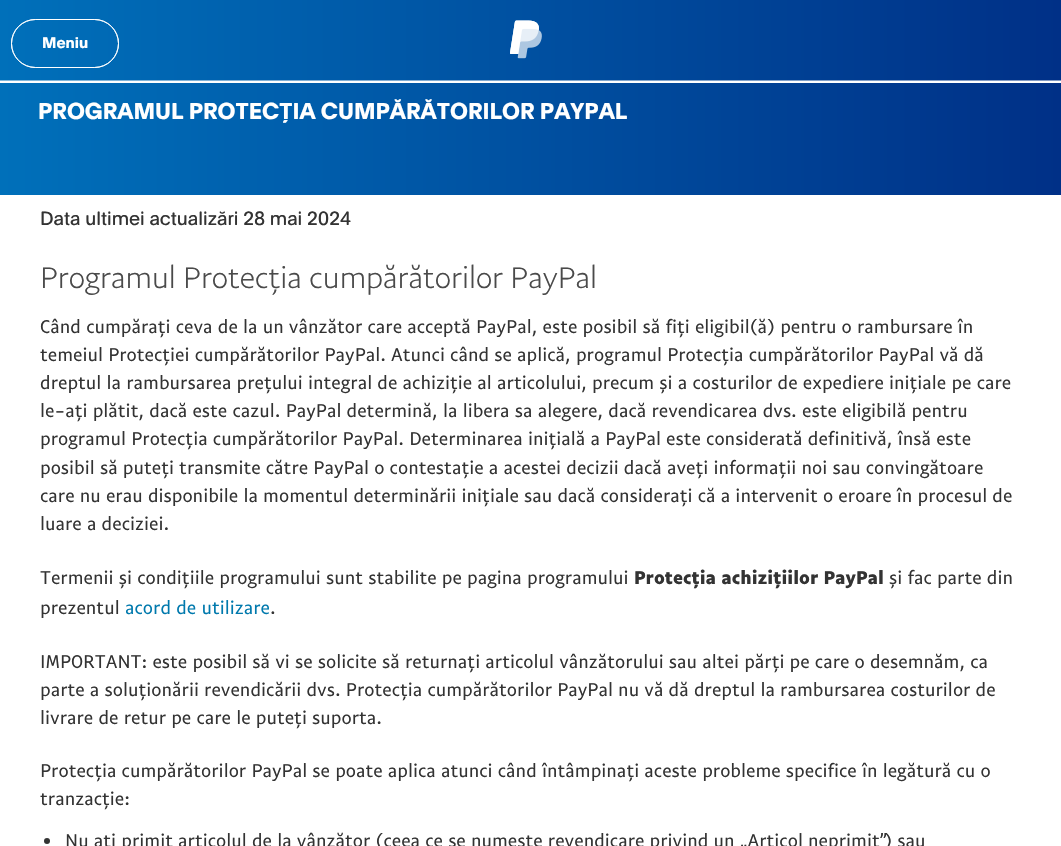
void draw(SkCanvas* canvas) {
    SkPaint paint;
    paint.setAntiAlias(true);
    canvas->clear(0xFFFFFFFF);
    {
        const SkColor colors[] = {0xFF0070BA, 0xFF003087};
        const float stops[] = {0, 1};
        const SkPoint ends[] = {{0, 40}, {1061, 40}};
        paint.setShader(SkGradientShader::MakeLinear(ends, colors, stops, 2, SkTileMode::kClamp));
        paint.setAlpha(255);
    }
    canvas->drawRect(SkRect::MakeXYWH(0, 0, 1061, 80), paint);
    {
        const SkColor colors[] = {0xFF80B8DD, 0xFF8098C3};
        const float stops[] = {0, 1};
        const SkPoint ends[] = {{0, 40}, {1061, 40}};
        paint.setShader(SkGradientShader::MakeLinear(ends, colors, stops, 2, SkTileMode::kClamp));
        paint.setAlpha(255);
    }
    canvas->drawRect(SkRect::MakeXYWH(0, 80, 1061, 1), paint);
    paint.setStyle(SkPaint::kStroke_Style);
    paint.setStrokeWidth(1);
    paint.setShader(nullptr);
    paint.setColor(0xFFFFFFFF);
    canvas->drawRoundRect(SkRect::MakeXYWH(11.5f, 19.5f, 107, 48), 24, 24, paint);
    canvas->drawRoundRect(SkRect::MakeXYWH(11.5f, 19.5f, 107, 48), 24, 24, paint);
    SkFont font1(fontMgr->matchFamilyStyle("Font", SkFontStyle::Bold()), 15);
    font1.setSubpixel(true);
    paint.setStyle(SkPaint::kFill_Style);
    canvas->drawString("Meniu", 42, 48, font1, paint);
    canvas->drawImageRect(SkImages::DeferredFromEncodedData(SkData::MakeFromFileName("img1.png")), SkRect::MakeXYWH(510, 20, 32, 39), SkSamplingOptions());
    {
        const SkColor colors[] = {0xFF0070BA, 0xFF003087};
        const float stops[] = {0, 1};
        const SkPoint ends[] = {{0, 139}, {1061, 139}};
        paint.setShader(SkGradientShader::MakeLinear(ends, colors, stops, 2, SkTileMode::kClamp));
        paint.setAlpha(255);
    }
    canvas->drawRect(SkRect::MakeXYWH(0, 83, 1061, 112), paint);
    SkFont font2(fontMgr->matchFamilyStyle("Font", SkFontStyle::Bold()), 22.5f);
    font2.setSubpixel(true);
    paint.setShader(nullptr);
    paint.setColor(0xFFFFFFFF);
    canvas->drawString("PROGRAMUL PROTECȚIA CUMPĂRĂTORILOR PAYPAL", 38, 119, font2, paint);
    SkFont font3(fontMgr->matchFamilyStyle("Font", SkFontStyle::Normal()), 18.75f);
    font3.setSubpixel(true);
    paint.setColor(0xFF333333);
    canvas->drawString("Data ultimei actualizări 28 mai 2024", 40, 225, font3, paint);
    SkFont font4(fontMgr->matchFamilyStyle("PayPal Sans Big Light", SkFontStyle(300, SkFontStyle::kNormal_Width, SkFontStyle::kUpright_Slant)), 30);
    font4.setSubpixel(true);
    paint.setColor(0xFF4A4A4A);
    canvas->drawString("Programul Protecția cumpărătorilor PayPal", 40, 288, font4, paint);
    SkFont font5(fontMgr->matchFamilyStyle("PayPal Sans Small", SkFontStyle::Normal()), 18.75f);
    font5.setSubpixel(true);
    paint.setColor(0xFF333333);
    canvas->drawString("Când cumpărați ceva de la un vânzător care acceptă PayPal, este posibil să fiți eligibil(ă) pentru o rambursare în", 40, 333, font5, paint);
    canvas->drawString("temeiul Protecției cumpărătorilor PayPal. Atunci când se aplică, programul Protecția cumpărătorilor PayPal vă dă", 40, 361, font5, paint);
    canvas->drawString("dreptul la rambursarea prețului integral de achiziție al articolului, precum și a costurilor de expediere inițiale pe care", 40, 389, font5, paint);
    canvas->drawString("le-ați plătit, dacă este cazul. PayPal determină, la libera sa alegere, dacă revendicarea dvs. este eligibilă pentru", 40, 417, font5, paint);
    canvas->drawString("programul Protecția cumpărătorilor PayPal. Determinarea inițială a PayPal este considerată definitivă, însă este", 40, 445, font5, paint);
    canvas->drawString("posibil să puteți transmite către PayPal o contestație a acestei decizii dacă aveți informații noi sau convingătoare", 40, 474, font5, paint);
    canvas->drawString("care nu erau disponibile la momentul determinării inițiale sau dacă considerați că a intervenit o eroare în procesul de", 40, 502, font5, paint);
    canvas->drawString("luare a deciziei.", 40, 530, font5, paint);
    canvas->drawString("Termenii și condițiile programului sunt stabilite pe pagina programului", 40, 584, font5, paint);
    SkFont font6(fontMgr->matchFamilyStyle("PayPal Sans Small", SkFontStyle::Bold()), 18.75f);
    font6.setSubpixel(true);
    canvas->drawString("Protecția achizițiilor PayPal", 634, 584, font6, paint);
    canvas->drawString("și fac parte din", 889, 584, font5, paint);
    canvas->drawString("prezentul", 40, 614, font5, paint);
    paint.setColor(0xFF0079AD);
    canvas->drawString("acord de utilizare", 125, 614, font5, paint);
    paint.setColor(0xFF333333);
    canvas->drawString(".", 270, 614, font5, paint);
    canvas->drawString("IMPORTANT: este posibil să vi se solicite să returnați articolul vânzătorului sau altei părți pe care o desemnăm, ca", 40, 668, font5, paint);
    canvas->drawString("parte a soluționării revendicării dvs. Protecția cumpărătorilor PayPal nu vă dă dreptul la rambursarea costurilor de", 40, 696, font5, paint);
    canvas->drawString("livrare de retur pe care le puteți suporta.", 40, 724, font5, paint);
    canvas->drawString("Protecția cumpărătorilor PayPal se poate aplica atunci când întâmpinați aceste probleme specifice în legătură cu o", 40, 777, font5, paint);
    canvas->drawString("tranzacție:", 40, 805, font5, paint);
    canvas->drawCircle(47, 841, 3, paint);
    canvas->drawString("Nu ați primit articolul de la vânzător (ceea ce se numește revendicare privind un „Articol neprimit”) sau", 65, 847, font5, paint);
}
